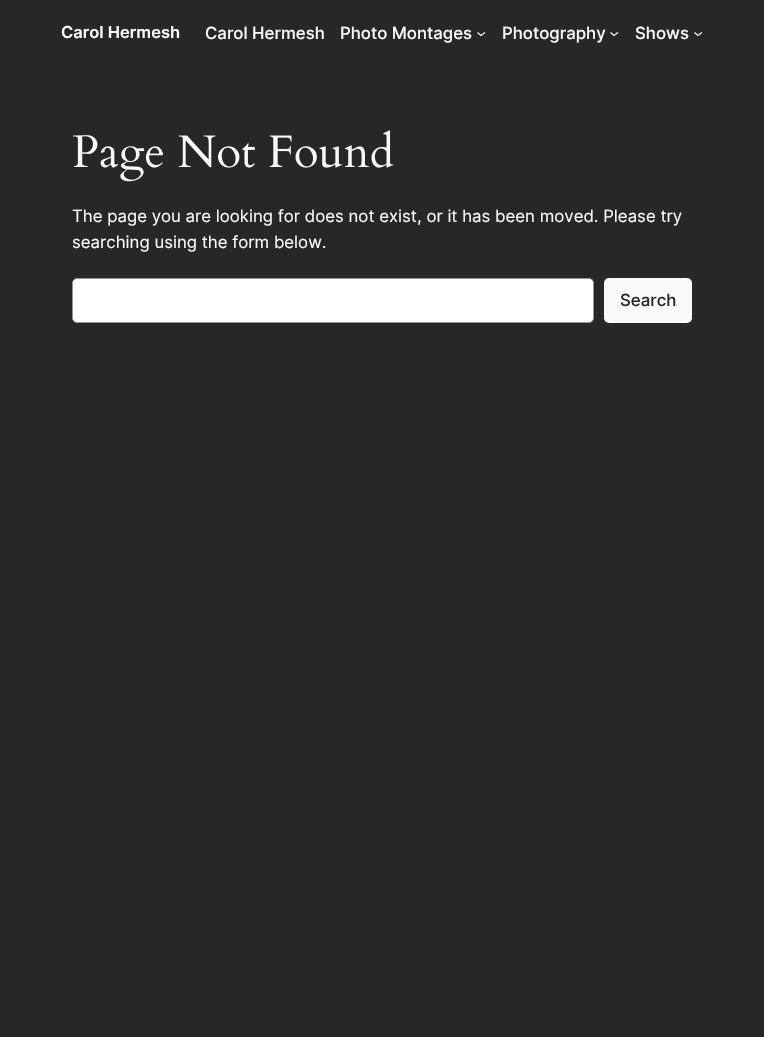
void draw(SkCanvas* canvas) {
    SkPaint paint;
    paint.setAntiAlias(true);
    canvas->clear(0xFF272727);
    SkFont font1(fontMgr->matchFamilyStyle("Inter", SkFontStyle(600, SkFontStyle::kNormal_Width, SkFontStyle::kUpright_Slant)), 16.5f);
    font1.setSubpixel(true);
    paint.setColor(0xFFF9F9F9);
    canvas->drawString("Carol Hermesh", 61, 38, font1, paint);
    SkFont font2(fontMgr->matchFamilyStyle("Inter", SkFontStyle(500, SkFontStyle::kNormal_Width, SkFontStyle::kUpright_Slant)), 16.8f);
    font2.setSubpixel(true);
    canvas->drawString("Carol Hermesh", 205, 39, font2, paint);
    canvas->drawString("Photo Montages", 340, 39, font2, paint);
    paint.setStyle(SkPaint::kStroke_Style);
    paint.setStrokeWidth(1.3f);
    canvas->drawPath(SkPathBuilder().moveTo(477.5f, 32.5f).lineTo(481, 35.5f).lineTo(485, 32.5f).detach(), paint);
    paint.setStyle(SkPaint::kFill_Style);
    canvas->drawString("Photography", 502, 39, font2, paint);
    paint.setStyle(SkPaint::kStroke_Style);
    canvas->drawPath(SkPathBuilder().moveTo(610.5f, 32.5f).lineTo(614, 35.5f).lineTo(618, 32.5f).detach(), paint);
    paint.setStyle(SkPaint::kFill_Style);
    canvas->drawString("Shows", 635, 39, font2, paint);
    paint.setStyle(SkPaint::kStroke_Style);
    canvas->drawPath(SkPathBuilder().moveTo(694.5f, 32.5f).lineTo(698, 35.5f).lineTo(702, 32.5f).detach(), paint);
    canvas->drawImageRect(SkImages::DeferredFromEncodedData(SkData::MakeFromFileName("img1.png")), SkRect::MakeXYWH(72, 130, 322, 52), SkSamplingOptions());
    SkFont font3(fontMgr->matchFamilyStyle("Inter", SkFontStyle::Normal()), 16.8f);
    font3.setSubpixel(true);
    paint.setStyle(SkPaint::kFill_Style);
    canvas->drawString("The page you are looking for does not exist, or it has been moved. Please try", 72, 222, font3, paint);
    canvas->drawString("searching using the form below.", 72, 248, font3, paint);
    paint.setColor(0xFFFFFFFF);
    canvas->drawRoundRect(SkRect::MakeXYWH(72.5f, 278.5f, 521, 44), 4.5f, 4.5f, paint);
    paint.setStyle(SkPaint::kStroke_Style);
    paint.setStrokeWidth(1);
    paint.setColor(0xFF949494);
    canvas->drawRoundRect(SkRect::MakeXYWH(72.5f, 278.5f, 521, 44), 4.5f, 4.5f, paint);
    paint.setStyle(SkPaint::kFill_Style);
    paint.setColor(0xFFF9F9F9);
    canvas->drawRoundRect(SkRect::MakeXYWH(604, 278, 88, 45), 5, 5, paint);
    paint.setColor(0xFF272727);
    canvas->drawString("Search", 620, 306, font2, paint);
}
